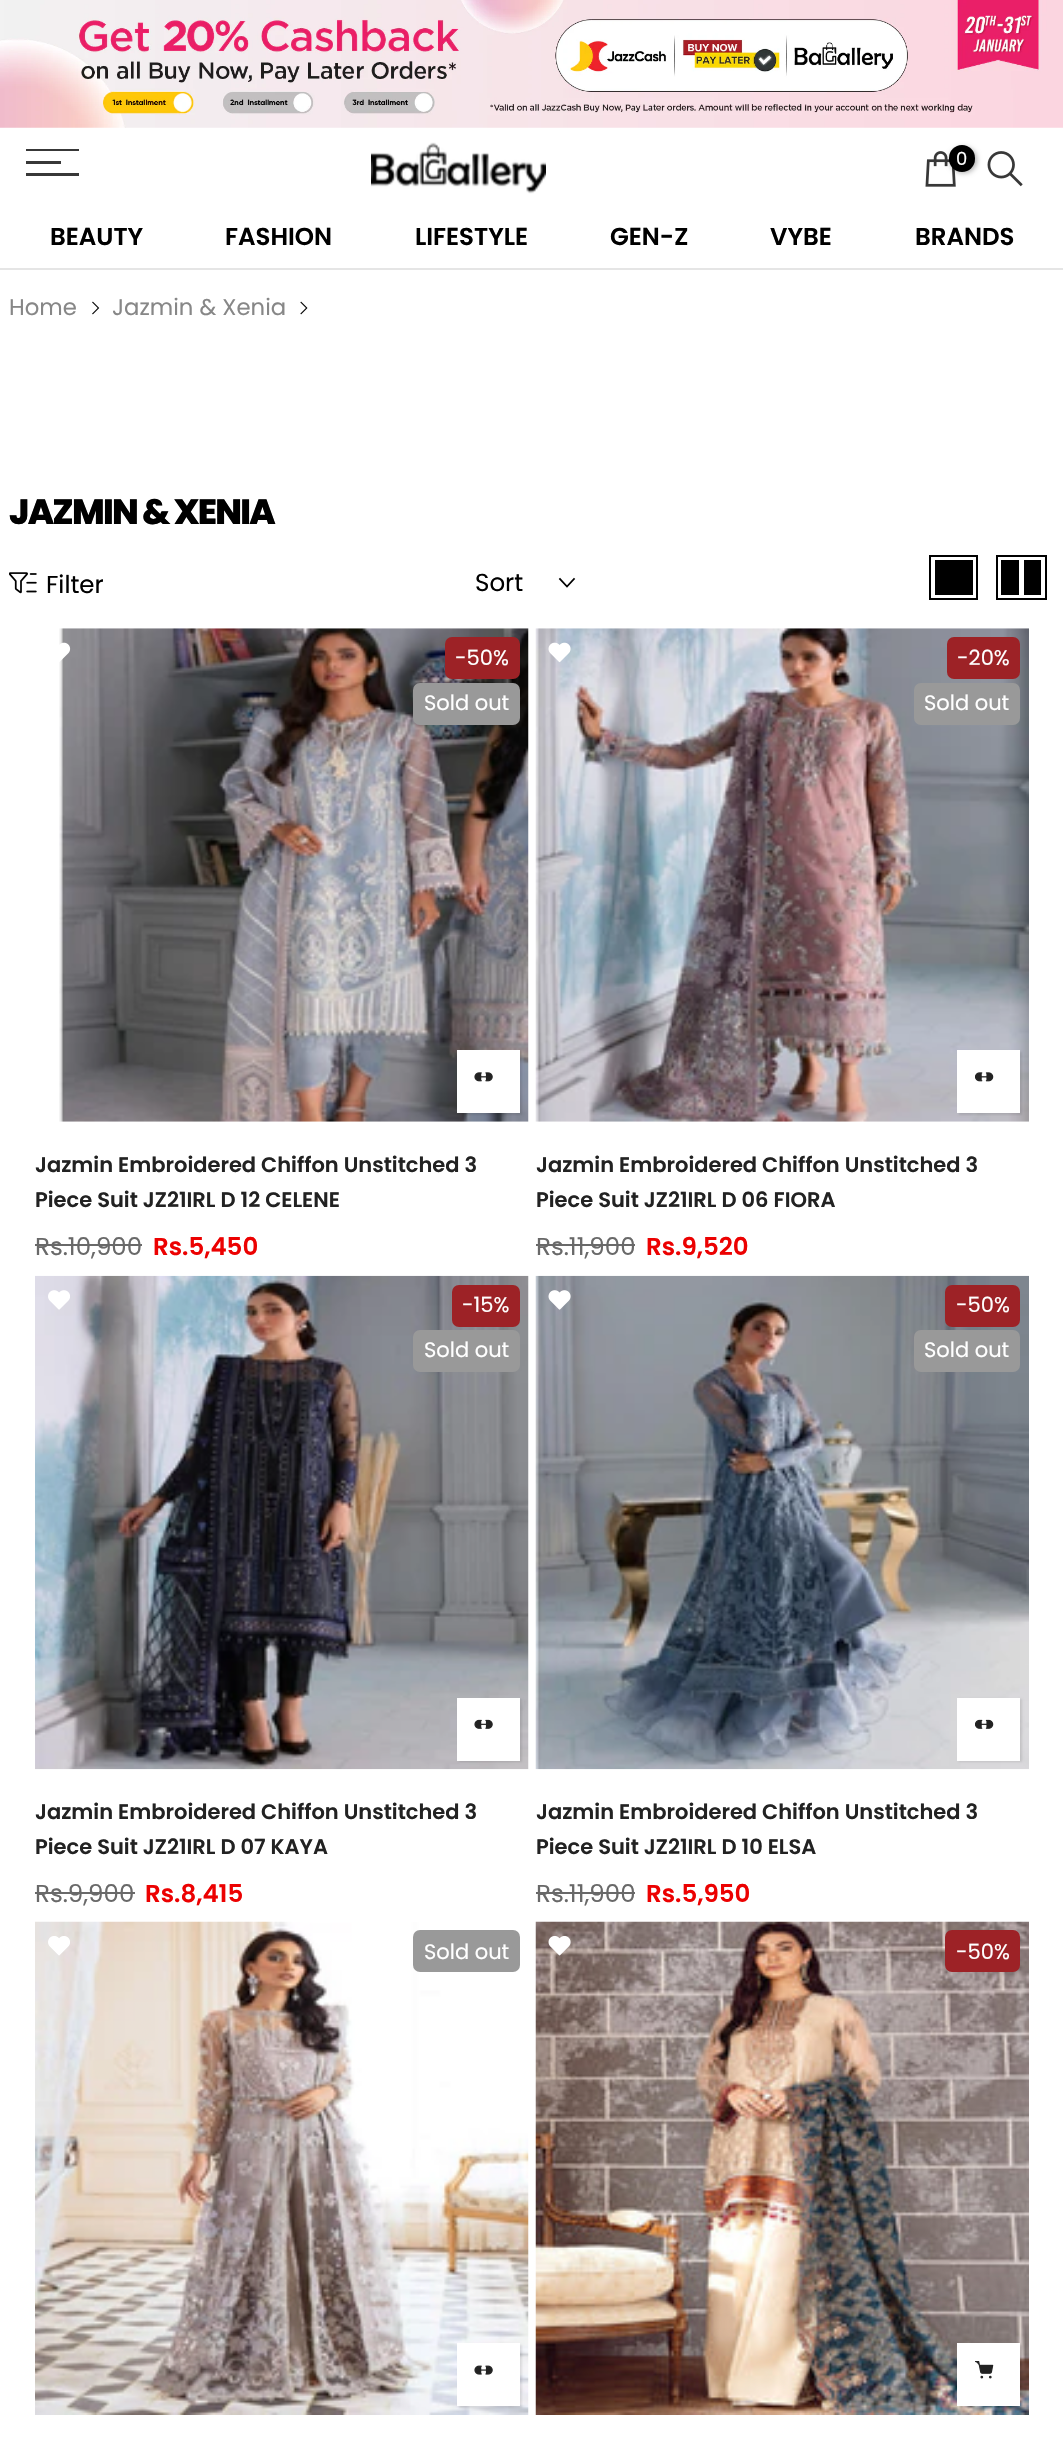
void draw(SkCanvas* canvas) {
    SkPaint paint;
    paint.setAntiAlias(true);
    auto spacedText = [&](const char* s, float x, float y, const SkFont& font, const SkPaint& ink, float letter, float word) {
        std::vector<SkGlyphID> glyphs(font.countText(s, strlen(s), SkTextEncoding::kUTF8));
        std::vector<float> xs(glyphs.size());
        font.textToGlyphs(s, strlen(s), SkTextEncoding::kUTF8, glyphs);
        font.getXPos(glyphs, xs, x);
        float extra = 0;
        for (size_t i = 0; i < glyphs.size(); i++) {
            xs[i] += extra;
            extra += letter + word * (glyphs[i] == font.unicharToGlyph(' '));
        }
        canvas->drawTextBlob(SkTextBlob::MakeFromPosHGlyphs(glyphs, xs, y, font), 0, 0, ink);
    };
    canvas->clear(0xFFFFFFFF);
    canvas->drawImageRect(SkImages::DeferredFromEncodedData(SkData::MakeFromFileName("img1.png")), SkRect::MakeXYWH(0, 0, 1063, 128), SkSamplingOptions());
    paint.setColor(0xFFE5E5E5);
    canvas->drawRect(SkRect::MakeXYWH(0, 268, 1063, 2), paint);
    paint.setColor(0xFF383838);
    canvas->drawRect(SkRect::MakeXYWH(26, 149, 53, 2), paint);
    canvas->drawRect(SkRect::MakeXYWH(26, 161, 35, 3), paint);
    canvas->drawRect(SkRect::MakeXYWH(26, 173, 53, 3), paint);
    canvas->drawImageRect(SkImages::DeferredFromEncodedData(SkData::MakeFromFileName("img2.png")), SkRect::MakeXYWH(371, 142, 175, 52), SkSamplingOptions());
    canvas->drawImageRect(SkImages::DeferredFromEncodedData(SkData::MakeFromFileName("img3.png")), SkRect::MakeXYWH(925, 151, 31, 36), SkSamplingOptions());
    paint.setColor(0x4D000000);
    paint.setMaskFilter(SkMaskFilter::MakeBlur(kNormal_SkBlurStyle, 2.5f));
    canvas->drawRoundRect(SkRect::MakeXYWH(950, 147, 27, 26), 13, 13, paint);
    paint.setMaskFilter(nullptr);
    paint.setColor(0xFF000000);
    canvas->drawRoundRect(SkRect::MakeXYWH(949, 145, 26, 27), 13, 13, paint);
    SkFont font1(fontMgr->matchFamilyStyle("Poppins", SkFontStyle::Normal()), 18);
    font1.setSubpixel(true);
    paint.setColor(0xFFFFFFFF);
    canvas->drawString("0", 956, 165, font1, paint);
    canvas->drawImageRect(SkImages::DeferredFromEncodedData(SkData::MakeFromFileName("img4.png")), SkRect::MakeXYWH(987, 151, 36, 36), SkSamplingOptions());
    SkFont font2(fontMgr->matchFamilyStyle("Poppins", SkFontStyle(600, SkFontStyle::kNormal_Width, SkFontStyle::kUpright_Slant)), 24.5f);
    font2.setSubpixel(true);
    paint.setColor(0xFF000000);
    canvas->drawString("BEAUTY", 50, 245, font2, paint);
    canvas->drawString("FASHION", 225, 245, font2, paint);
    canvas->drawString("LIFESTYLE", 415, 245, font2, paint);
    canvas->drawString("GEN-Z", 610, 245, font2, paint);
    canvas->drawString("VYBE", 770, 245, font2, paint);
    canvas->drawString("BRANDS", 915, 245, font2, paint);
    SkFont font3(fontMgr->matchFamilyStyle("Poppins", SkFontStyle::Normal()), 22.75f);
    font3.setSubpixel(true);
    paint.setColor(0xFF878787);
    canvas->drawString("Home", 9, 315, font3, paint);
    canvas->drawImageRect(SkImages::DeferredFromEncodedData(SkData::MakeFromFileName("img5.png")), SkRect::MakeXYWH(92, 301, 8, 14), SkSamplingOptions());
    canvas->drawString("Jazmin & Xenia", 112, 315, font3, paint);
    canvas->drawImageRect(SkImages::DeferredFromEncodedData(SkData::MakeFromFileName("img6.png")), SkRect::MakeXYWH(300, 301, 8, 14), SkSamplingOptions());
    SkFont font4(fontMgr->matchFamilyStyle("Poppins", SkFontStyle(800, SkFontStyle::kNormal_Width, SkFontStyle::kUpright_Slant)), 35);
    font4.setSubpixel(true);
    paint.setColor(0xFF000000);
    spacedText("JAZMIN & XENIA", 9, 524, font4, paint, -1.75f, 0);
    canvas->drawImageRect(SkImages::DeferredFromEncodedData(SkData::MakeFromFileName("img7.png")), SkRect::MakeXYWH(9, 572, 28, 22), SkSamplingOptions());
    SkFont font5(fontMgr->matchFamilyStyle("Poppins", SkFontStyle::Normal()), 24.5f);
    font5.setSubpixel(true);
    canvas->drawString("Filter", 46, 593, font5, paint);
    canvas->drawString("Sort", 475, 591, font5, paint);
    paint.setStyle(SkPaint::kStroke_Style);
    paint.setStrokeWidth(1.8f);
    paint.setStrokeCap(SkPaint::kSquare_Cap);
    canvas->drawPath(SkPathBuilder().moveTo(574, 579).lineTo(567, 586.5f).lineTo(560, 579).detach(), paint);
    paint.setStrokeWidth(2);
    paint.setStrokeCap(SkPaint::kButt_Cap);
    canvas->drawRect(SkRect::MakeXYWH(930, 556, 47, 43), paint);
    paint.setStyle(SkPaint::kFill_Style);
    canvas->drawRect(SkRect::MakeXYWH(935, 560, 38, 35), paint);
    paint.setStyle(SkPaint::kStroke_Style);
    canvas->drawRect(SkRect::MakeXYWH(997, 556, 49, 43), paint);
    paint.setStyle(SkPaint::kFill_Style);
    canvas->drawRect(SkRect::MakeXYWH(1024, 560, 17, 35), paint);
    canvas->drawRect(SkRect::MakeXYWH(1001, 560, 18, 35), paint);
    canvas->drawImageRect(SkImages::DeferredFromEncodedData(SkData::MakeFromFileName("img8.png")), SkRect::MakeXYWH(59, 628, 470, 494), SkSamplingOptions());
    canvas->drawImageRect(SkImages::DeferredFromEncodedData(SkData::MakeFromFileName("img9.png")), SkRect::MakeXYWH(59, 642, 12, 20), SkSamplingOptions());
    paint.setColor(0xFF9D2226);
    canvas->drawRoundRect(SkRect::MakeXYWH(445, 637, 75, 42), 7, 7, paint);
    SkFont font6(fontMgr->matchFamilyStyle("Poppins", SkFontStyle::Normal()), 21);
    font6.setSubpixel(true);
    paint.setColor(0xFFFFFFFF);
    canvas->drawString("-50%", 455, 665, font6, paint);
    paint.setColor(0xFF999999);
    canvas->drawRoundRect(SkRect::MakeXYWH(413, 683, 107, 42), 7, 7, paint);
    paint.setColor(0xFFFFFFFF);
    canvas->drawString("Sold out", 424, 710, font6, paint);
    paint.setColor(0x1A000000);
    paint.setMaskFilter(SkMaskFilter::MakeBlur(kNormal_SkBlurStyle, 1));
    canvas->drawRect(SkRect::MakeXYWH(459, 1052, 63, 63), paint);
    paint.setMaskFilter(nullptr);
    paint.setColor(0xFFFFFFFF);
    canvas->drawRect(SkRect::MakeXYWH(457, 1050, 63, 63), paint);
    canvas->drawImageRect(SkImages::DeferredFromEncodedData(SkData::MakeFromFileName("img10.png")), SkRect::MakeXYWH(474, 1072, 19, 10), SkSamplingOptions());
    SkFont font7(fontMgr->matchFamilyStyle("Poppins", SkFontStyle(600, SkFontStyle::kNormal_Width, SkFontStyle::kUpright_Slant)), 21);
    font7.setSubpixel(true);
    paint.setColor(0xFF222222);
    canvas->drawString("Jazmin Embroidered Chiffon Unstitched 3", 35, 1172, font7, paint);
    canvas->drawString("Piece Suit JZ21IRL D 12 CELENE", 35, 1207, font7, paint);
    paint.setColor(0xFF696969);
    canvas->drawString("Rs.10,900", 35, 1255, font5, paint);
    canvas->drawRect(SkRect::MakeXYWH(35, 1244, 107, 2), paint);
    paint.setColor(0xFFEC0101);
    canvas->drawString("Rs.5,450", 153, 1255, font2, paint);
    canvas->drawImageRect(SkImages::DeferredFromEncodedData(SkData::MakeFromFileName("img11.png")), SkRect::MakeXYWH(535, 628, 494, 494), SkSamplingOptions());
    canvas->drawImageRect(SkImages::DeferredFromEncodedData(SkData::MakeFromFileName("img12.png")), SkRect::MakeXYWH(548, 642, 23, 21), SkSamplingOptions());
    paint.setColor(0xFF9D2226);
    canvas->drawRoundRect(SkRect::MakeXYWH(947, 637, 73, 42), 7, 7, paint);
    paint.setColor(0xFFFFFFFF);
    canvas->drawString("-20%", 957, 665, font6, paint);
    paint.setColor(0xFF999999);
    canvas->drawRoundRect(SkRect::MakeXYWH(914, 683, 106, 42), 7, 7, paint);
    paint.setColor(0xFFFFFFFF);
    canvas->drawString("Sold out", 924, 710, font6, paint);
    paint.setColor(0x1A000000);
    paint.setMaskFilter(SkMaskFilter::MakeBlur(kNormal_SkBlurStyle, 1));
    canvas->drawRect(SkRect::MakeXYWH(959, 1052, 63, 63), paint);
    paint.setMaskFilter(nullptr);
    paint.setColor(0xFFFFFFFF);
    canvas->drawRect(SkRect::MakeXYWH(957, 1050, 63, 63), paint);
    canvas->drawImageRect(SkImages::DeferredFromEncodedData(SkData::MakeFromFileName("img13.png")), SkRect::MakeXYWH(975, 1072, 19, 10), SkSamplingOptions());
    paint.setColor(0xFF222222);
    canvas->drawString("Jazmin Embroidered Chiffon Unstitched 3", 536, 1172, font7, paint);
    canvas->drawString("Piece Suit JZ21IRL D 06 FIORA", 536, 1207, font7, paint);
    paint.setColor(0xFF696969);
    canvas->drawString("Rs.11,900", 536, 1255, font5, paint);
    canvas->drawRect(SkRect::MakeXYWH(536, 1244, 99, 2), paint);
    paint.setColor(0xFFEC0101);
    canvas->drawString("Rs.9,520", 646, 1255, font2, paint);
    canvas->drawImageRect(SkImages::DeferredFromEncodedData(SkData::MakeFromFileName("img14.png")), SkRect::MakeXYWH(35, 1275, 494, 495), SkSamplingOptions());
    canvas->drawImageRect(SkImages::DeferredFromEncodedData(SkData::MakeFromFileName("img15.png")), SkRect::MakeXYWH(48, 1290, 22, 20), SkSamplingOptions());
    paint.setColor(0xFF9D2226);
    canvas->drawRoundRect(SkRect::MakeXYWH(452, 1285, 68, 42), 7, 7, paint);
    paint.setColor(0xFFFFFFFF);
    canvas->drawString("-15%", 462, 1312, font6, paint);
    paint.setColor(0xFF999999);
    canvas->drawRoundRect(SkRect::MakeXYWH(413, 1330, 107, 42), 7, 7, paint);
    paint.setColor(0xFFFFFFFF);
    canvas->drawString("Sold out", 424, 1357, font6, paint);
    paint.setColor(0x1A000000);
    paint.setMaskFilter(SkMaskFilter::MakeBlur(kNormal_SkBlurStyle, 1));
    canvas->drawRect(SkRect::MakeXYWH(459, 1699, 63, 63), paint);
    paint.setMaskFilter(nullptr);
    paint.setColor(0xFFFFFFFF);
    canvas->drawRect(SkRect::MakeXYWH(457, 1698, 63, 63), paint);
    canvas->drawImageRect(SkImages::DeferredFromEncodedData(SkData::MakeFromFileName("img16.png")), SkRect::MakeXYWH(474, 1719, 19, 10), SkSamplingOptions());
    paint.setColor(0xFF222222);
    canvas->drawString("Jazmin Embroidered Chiffon Unstitched 3", 35, 1819, font7, paint);
    canvas->drawString("Piece Suit JZ21IRL D 07 KAYA", 35, 1854, font7, paint);
    paint.setColor(0xFF696969);
    canvas->drawString("Rs.9,900", 35, 1902, font5, paint);
    canvas->drawRect(SkRect::MakeXYWH(35, 1892, 100, 2), paint);
    paint.setColor(0xFFEC0101);
    canvas->drawString("Rs.8,415", 145, 1902, font2, paint);
    canvas->drawImageRect(SkImages::DeferredFromEncodedData(SkData::MakeFromFileName("img17.png")), SkRect::MakeXYWH(535, 1275, 494, 495), SkSamplingOptions());
    canvas->drawImageRect(SkImages::DeferredFromEncodedData(SkData::MakeFromFileName("img18.png")), SkRect::MakeXYWH(548, 1290, 23, 20), SkSamplingOptions());
    paint.setColor(0xFF9D2226);
    canvas->drawRoundRect(SkRect::MakeXYWH(945, 1285, 75, 42), 7, 7, paint);
    paint.setColor(0xFFFFFFFF);
    canvas->drawString("-50%", 956, 1312, font6, paint);
    paint.setColor(0xFF999999);
    canvas->drawRoundRect(SkRect::MakeXYWH(914, 1330, 106, 42), 7, 7, paint);
    paint.setColor(0xFFFFFFFF);
    canvas->drawString("Sold out", 924, 1357, font6, paint);
    paint.setColor(0x1A000000);
    paint.setMaskFilter(SkMaskFilter::MakeBlur(kNormal_SkBlurStyle, 1));
    canvas->drawRect(SkRect::MakeXYWH(959, 1699, 63, 63), paint);
    paint.setMaskFilter(nullptr);
    paint.setColor(0xFFFFFFFF);
    canvas->drawRect(SkRect::MakeXYWH(957, 1698, 63, 63), paint);
    canvas->drawImageRect(SkImages::DeferredFromEncodedData(SkData::MakeFromFileName("img19.png")), SkRect::MakeXYWH(975, 1719, 19, 10), SkSamplingOptions());
    paint.setColor(0xFF222222);
    canvas->drawString("Jazmin Embroidered Chiffon Unstitched 3", 536, 1819, font7, paint);
    canvas->drawString("Piece Suit JZ21IRL D 10 ELSA", 536, 1854, font7, paint);
    paint.setColor(0xFF696969);
    canvas->drawString("Rs.11,900", 536, 1902, font5, paint);
    canvas->drawRect(SkRect::MakeXYWH(536, 1892, 99, 2), paint);
    paint.setColor(0xFFEC0101);
    canvas->drawString("Rs.5,950", 646, 1902, font2, paint);
    canvas->drawImageRect(SkImages::DeferredFromEncodedData(SkData::MakeFromFileName("img20.png")), SkRect::MakeXYWH(35, 1921, 494, 494), SkSamplingOptions());
    canvas->drawImageRect(SkImages::DeferredFromEncodedData(SkData::MakeFromFileName("img21.png")), SkRect::MakeXYWH(48, 1936, 22, 20), SkSamplingOptions());
    paint.setColor(0xFF999999);
    canvas->drawRoundRect(SkRect::MakeXYWH(413, 1930, 107, 42), 7, 7, paint);
    paint.setColor(0xFFFFFFFF);
    canvas->drawString("Sold out", 424, 1959, font6, paint);
    paint.setColor(0x1A000000);
    paint.setMaskFilter(SkMaskFilter::MakeBlur(kNormal_SkBlurStyle, 1));
    canvas->drawRect(SkRect::MakeXYWH(459, 2345, 63, 63), paint);
    paint.setMaskFilter(nullptr);
    paint.setColor(0xFFFFFFFF);
    canvas->drawRect(SkRect::MakeXYWH(457, 2343, 63, 63), paint);
    canvas->drawImageRect(SkImages::DeferredFromEncodedData(SkData::MakeFromFileName("img22.png")), SkRect::MakeXYWH(474, 2365, 19, 10), SkSamplingOptions());
    canvas->drawImageRect(SkImages::DeferredFromEncodedData(SkData::MakeFromFileName("img23.png")), SkRect::MakeXYWH(535, 1921, 494, 494), SkSamplingOptions());
    canvas->drawImageRect(SkImages::DeferredFromEncodedData(SkData::MakeFromFileName("img24.png")), SkRect::MakeXYWH(548, 1936, 23, 20), SkSamplingOptions());
    paint.setColor(0xFF9D2226);
    canvas->drawRoundRect(SkRect::MakeXYWH(945, 1930, 75, 42), 7, 7, paint);
    paint.setColor(0xFFFFFFFF);
    canvas->drawString("-50%", 956, 1959, font6, paint);
    paint.setColor(0x1A000000);
    paint.setMaskFilter(SkMaskFilter::MakeBlur(kNormal_SkBlurStyle, 1));
    canvas->drawRect(SkRect::MakeXYWH(959, 2345, 63, 63), paint);
    paint.setMaskFilter(nullptr);
    paint.setColor(0xFFFFFFFF);
    canvas->drawRect(SkRect::MakeXYWH(957, 2343, 63, 63), paint);
    canvas->drawImageRect(SkImages::DeferredFromEncodedData(SkData::MakeFromFileName("img25.png")), SkRect::MakeXYWH(975, 2361, 19, 18), SkSamplingOptions());
}
